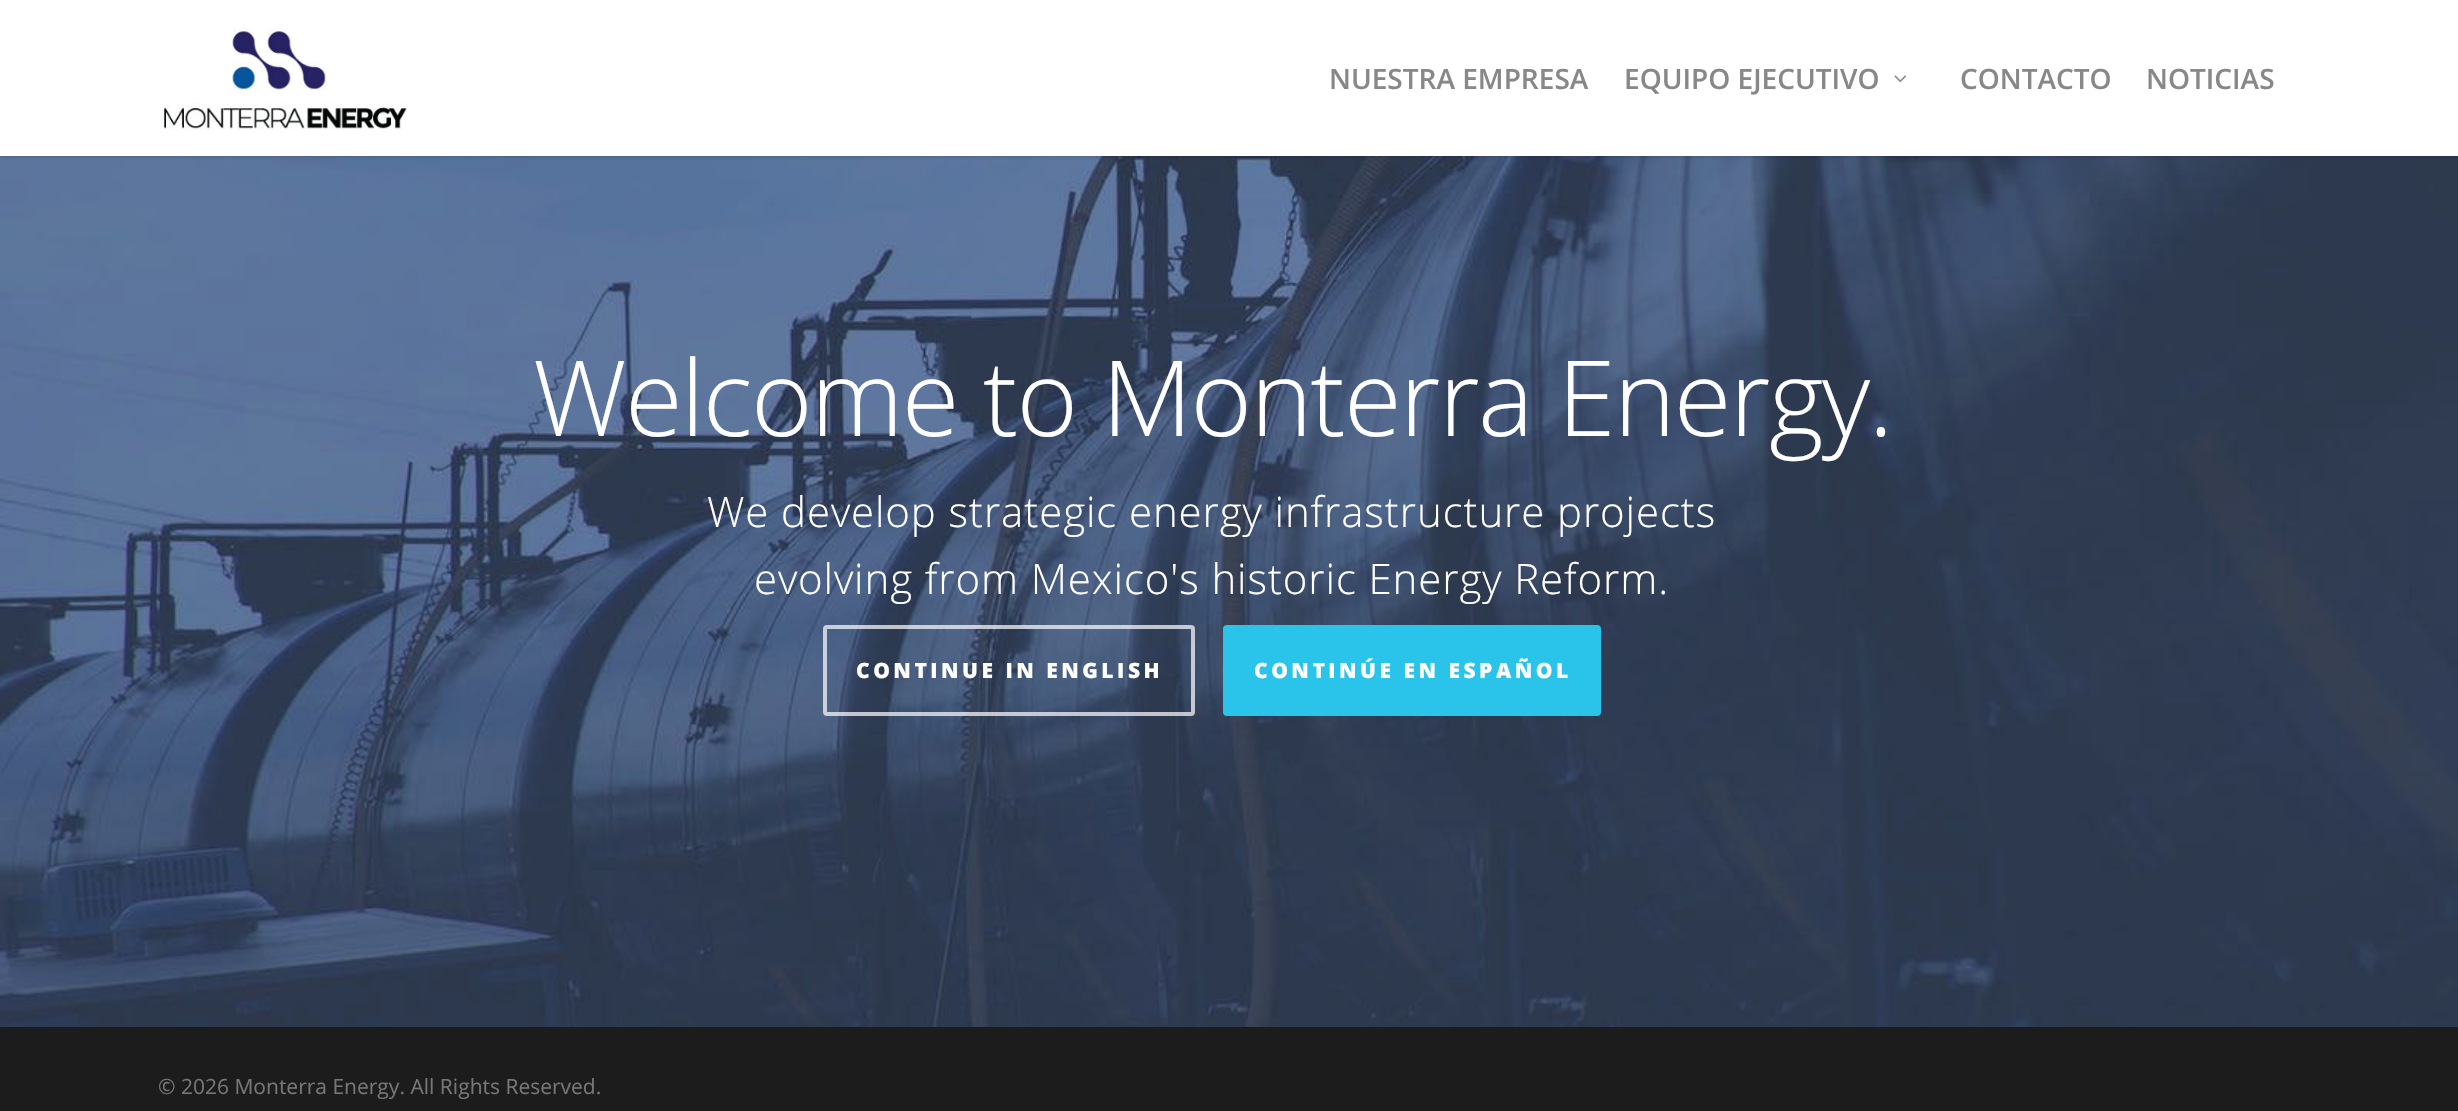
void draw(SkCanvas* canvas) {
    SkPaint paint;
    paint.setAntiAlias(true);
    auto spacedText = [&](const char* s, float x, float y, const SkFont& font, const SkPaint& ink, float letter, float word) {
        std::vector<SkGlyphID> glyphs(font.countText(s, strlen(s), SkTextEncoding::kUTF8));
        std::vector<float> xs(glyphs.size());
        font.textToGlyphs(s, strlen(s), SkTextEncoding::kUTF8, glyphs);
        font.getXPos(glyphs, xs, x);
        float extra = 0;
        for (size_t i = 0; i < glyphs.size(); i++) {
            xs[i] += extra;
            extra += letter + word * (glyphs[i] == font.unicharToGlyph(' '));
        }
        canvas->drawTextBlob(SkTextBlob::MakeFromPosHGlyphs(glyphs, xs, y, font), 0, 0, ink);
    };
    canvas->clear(0xFFFFFFFF);
    canvas->drawImageRect(SkImages::DeferredFromEncodedData(SkData::MakeFromFileName("img3.png")), SkRect::MakeXYWH(0, 156, 2458, 871), SkSamplingOptions());
    paint.setColor(0x38000000);
    paint.setMaskFilter(SkMaskFilter::MakeBlur(kNormal_SkBlurStyle, 2.5f));
    canvas->drawRect(SkRect::MakeXYWH(0, 0, 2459, 156), paint);
    paint.setMaskFilter(nullptr);
    paint.setColor(0xFFFFFFFF);
    canvas->drawRect(SkRect::MakeXYWH(0, 0, 2458, 156), paint);
    canvas->drawImageRect(SkImages::DeferredFromEncodedData(SkData::MakeFromFileName("img1.png")), SkRect::MakeXYWH(163, 28, 245, 102), SkSamplingOptions());
    SkFont font1(fontMgr->matchFamilyStyle("Open Sans", SkFontStyle(600, SkFontStyle::kNormal_Width, SkFontStyle::kUpright_Slant)), 28);
    font1.setSubpixel(true);
    paint.setColor(0xFF888888);
    canvas->drawString("NUESTRA EMPRESA", 1329, 89, font1, paint);
    canvas->drawString("EQUIPO EJECUTIVO", 1624, 89, font1, paint);
    canvas->drawImageRect(SkImages::DeferredFromEncodedData(SkData::MakeFromFileName("img2.png")), SkRect::MakeXYWH(1894, 75, 12, 8), SkSamplingOptions());
    canvas->drawString("CONTACTO", 1960, 89, font1, paint);
    canvas->drawString("NOTICIAS", 2146, 89, font1, paint);
    SkFont font2(fontMgr->matchFamilyStyle("Open Sans", SkFontStyle(300, SkFontStyle::kNormal_Width, SkFontStyle::kUpright_Slant)), 105);
    font2.setSubpixel(true);
    paint.setColor(0xFFFFFFFF);
    spacedText("Welcome to Monterra Energy.", 533, 436, font2, paint, -1.75f, 0);
    SkFont font3(fontMgr->matchFamilyStyle("Open Sans", SkFontStyle(300, SkFontStyle::kNormal_Width, SkFontStyle::kUpright_Slant)), 42);
    font3.setSubpixel(true);
    spacedText("We develop strategic energy infrastructure projects", 707, 527, font3, paint, 0.88f, 0);
    spacedText("evolving from Mexico's historic Energy Reform.", 754, 594, font3, paint, 0.88f, 0);
    paint.setStyle(SkPaint::kStroke_Style);
    paint.setStrokeWidth(4);
    paint.setColor(0xB3FFFFFF);
    canvas->drawRoundRect(SkRect::MakeXYWH(825, 627, 368, 87), 2, 2, paint);
    SkFont font4(fontMgr->matchFamilyStyle("Open Sans", SkFontStyle(800, SkFontStyle::kNormal_Width, SkFontStyle::kUpright_Slant)), 21);
    font4.setSubpixel(true);
    paint.setStyle(SkPaint::kFill_Style);
    paint.setColor(0xFFFFFFFF);
    spacedText("CONTINUE IN ENGLISH", 856, 678, font4, paint, 3.5f, 0);
    paint.setColor(0xFF2AC4EA);
    canvas->drawRoundRect(SkRect::MakeXYWH(1223, 625, 378, 91), 4, 4, paint);
    paint.setColor(0xFFFFFFFF);
    spacedText("CONTINÚE EN ESPAÑOL", 1254, 678, font4, paint, 3.5f, 0);
    paint.setColor(0xFF1C1C1C);
    canvas->drawRect(SkRect::MakeXYWH(0, 1027, 2458, 84), paint);
    SkFont font5(fontMgr->matchFamilyStyle("Open Sans", SkFontStyle::Normal()), 21);
    font5.setSubpixel(true);
    paint.setColor(0xFF777777);
    canvas->drawString("© 2026 Monterra Energy. All Rights Reserved.", 158, 1094, font5, paint);
}
